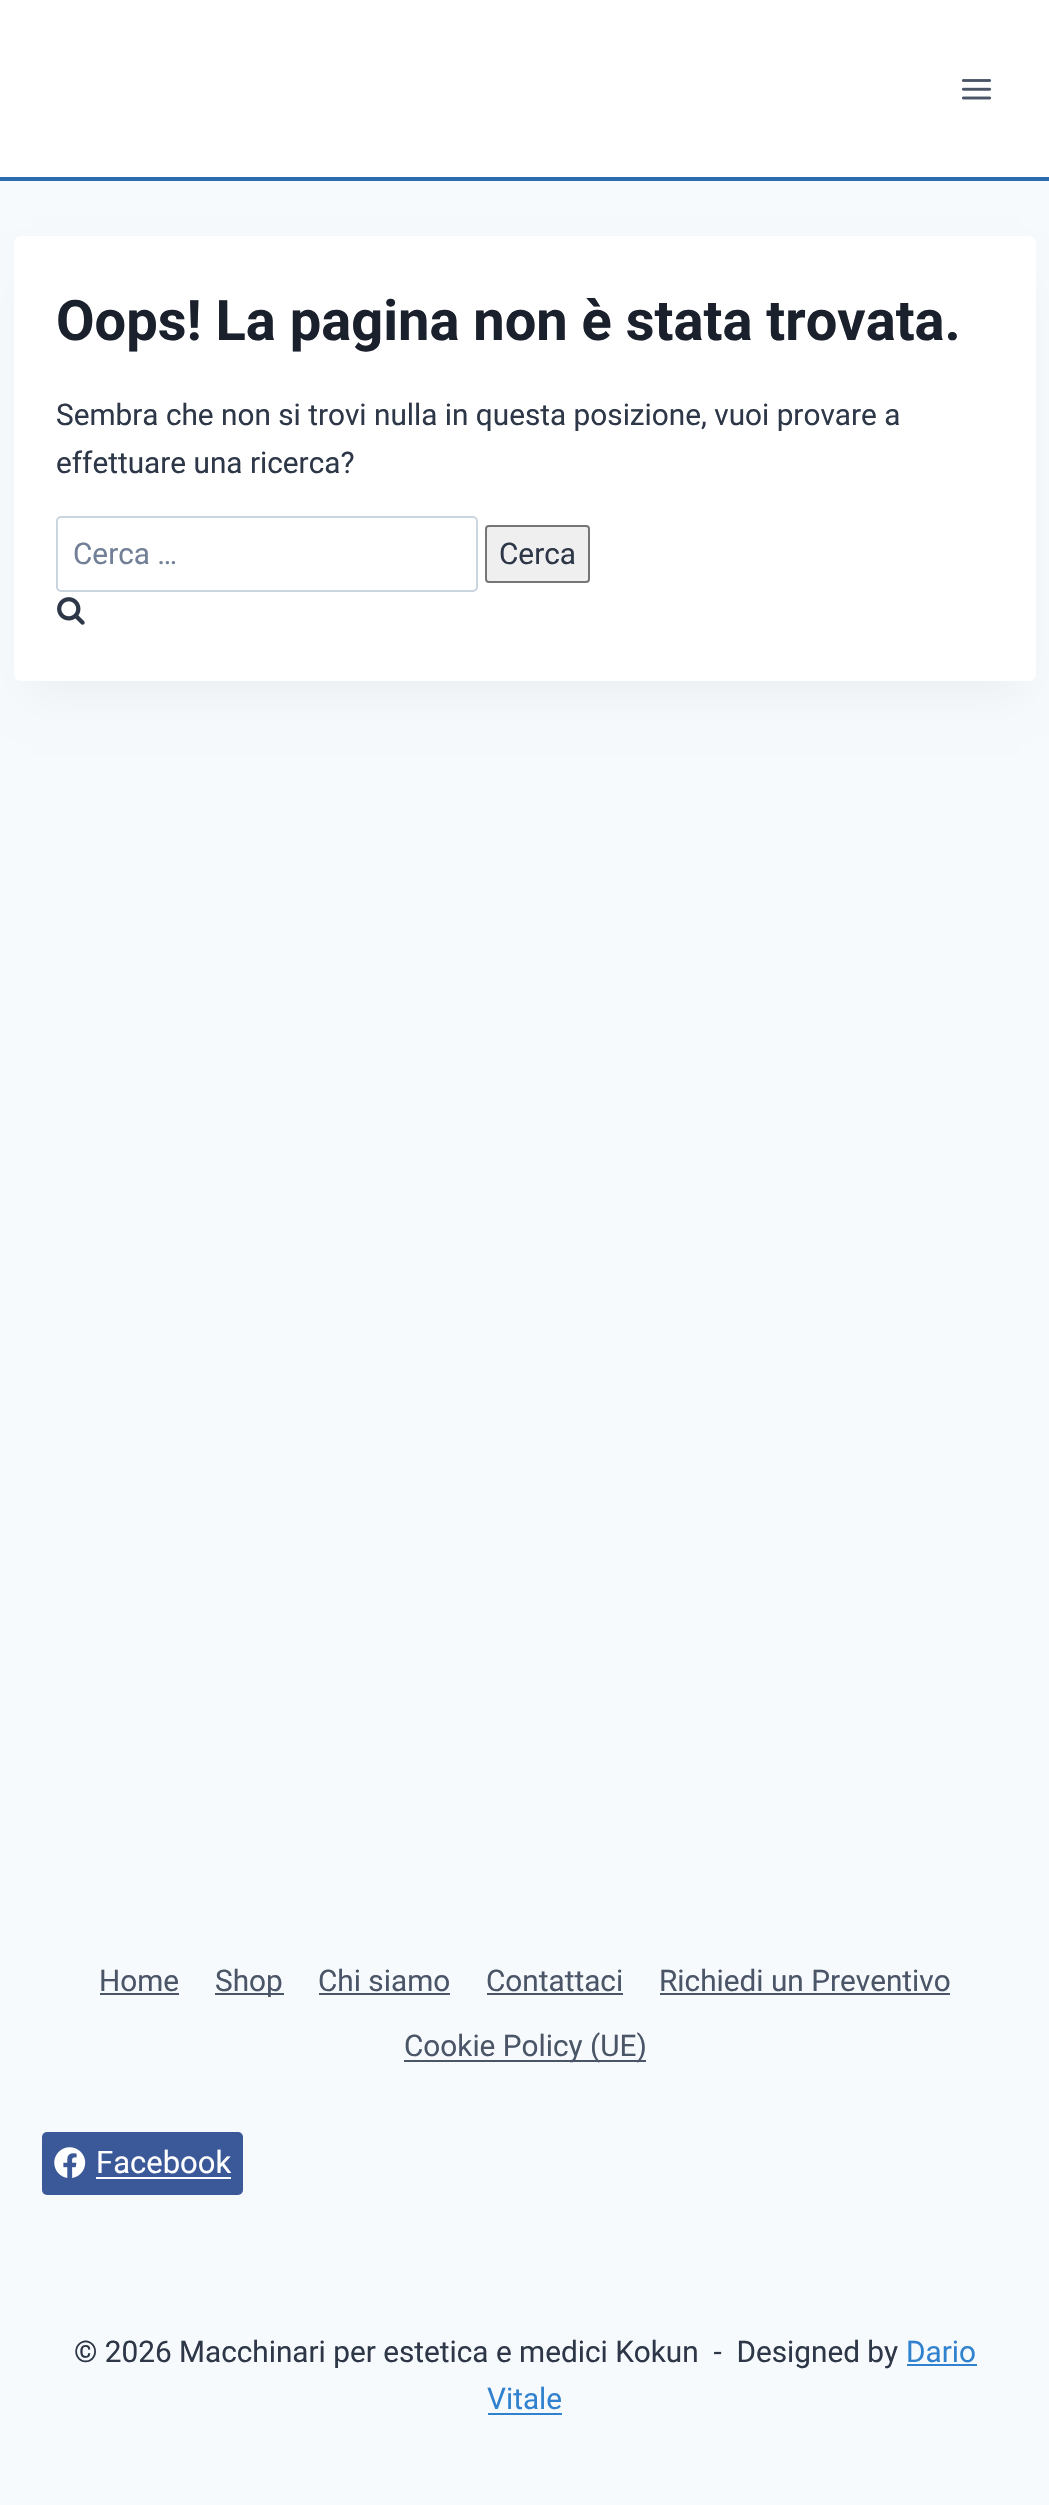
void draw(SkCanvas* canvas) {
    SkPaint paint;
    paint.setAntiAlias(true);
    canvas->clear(0xFFF7FAFC);
    paint.setColor(0xFFFFFFFF);
    canvas->drawRect(SkRect::MakeXYWH(0, 0, 1049, 177), paint);
    paint.setColor(0xFF2B6CB0);
    canvas->drawRect(SkRect::MakeXYWH(0, 177, 1049, 4), paint);
    canvas->drawImageRect(SkImages::DeferredFromEncodedData(SkData::MakeFromFileName("img1.png")), SkRect::MakeXYWH(961, 79, 31, 21), SkSamplingOptions());
    paint.setColor(0x0D000000);
    paint.setMaskFilter(SkMaskFilter::MakeBlur(kNormal_SkBlurStyle, 22));
    canvas->drawRect(SkRect::MakeXYWH(32, 280, 987, 410), paint);
    paint.setMaskFilter(nullptr);
    paint.setColor(0xFFFFFFFF);
    canvas->drawRoundRect(SkRect::MakeXYWH(14, 236, 1022, 445), 7, 7, paint);
    SkFont font1(fontMgr->matchFamilyStyle("Roboto", SkFontStyle::Bold()), 56);
    font1.setSubpixel(true);
    paint.setColor(0xFF1A202C);
    canvas->drawString("Oops! La pagina non è stata trovata.", 56, 340, font1, paint);
    SkFont font2(fontMgr->matchFamilyStyle("Roboto", SkFontStyle::Normal()), 29.75f);
    font2.setSubpixel(true);
    paint.setColor(0xFF2D3748);
    canvas->drawString("Sembra che non si trovi nulla in questa posizione, vuoi provare a", 56, 425, font2, paint);
    canvas->drawString("effettuare una ricerca?", 56, 473, font2, paint);
    paint.setStyle(SkPaint::kStroke_Style);
    paint.setStrokeWidth(2);
    paint.setColor(0xFFCBD5E0);
    canvas->drawRoundRect(SkRect::MakeXYWH(57, 517, 420, 74), 4, 4, paint);
    paint.setStyle(SkPaint::kFill_Style);
    paint.setColor(0xFF718096);
    canvas->drawString("Cerca …", 73, 564, font2, paint);
    paint.setColor(0xFFEFEFEF);
    canvas->drawRoundRect(SkRect::MakeXYWH(486, 526, 103, 56), 3, 3, paint);
    paint.setStyle(SkPaint::kStroke_Style);
    paint.setColor(0xFF767676);
    canvas->drawRoundRect(SkRect::MakeXYWH(486, 526, 103, 56), 3, 3, paint);
    paint.setStyle(SkPaint::kFill_Style);
    paint.setColor(0xFF2D3748);
    canvas->drawString("Cerca", 499, 564, font2, paint);
    canvas->drawImageRect(SkImages::DeferredFromEncodedData(SkData::MakeFromFileName("img2.png")), SkRect::MakeXYWH(57, 597, 28, 28), SkSamplingOptions());
    paint.setColor(0xFF4A5568);
    canvas->drawString("Home", 99, 1991, font2, paint);
    canvas->drawRect(SkRect::MakeXYWH(100, 1993, 79, 2), paint);
    canvas->drawRect(SkRect::MakeXYWH(215, 1993, 69, 2), paint);
    canvas->drawString("Shop", 215, 1991, font2, paint);
    canvas->drawString("Chi siamo", 318, 1991, font2, paint);
    canvas->drawRect(SkRect::MakeXYWH(319, 1993, 131, 2), paint);
    canvas->drawString("Contattaci", 486, 1991, font2, paint);
    canvas->drawRect(SkRect::MakeXYWH(487, 1993, 136, 2), paint);
    canvas->drawString("Richiedi un Preventivo", 659, 1991, font2, paint);
    canvas->drawRect(SkRect::MakeXYWH(660, 1993, 290, 2), paint);
    canvas->drawRect(SkRect::MakeXYWH(404, 2060, 242, 2), paint);
    canvas->drawString("Cookie Policy (UE)", 404, 2056, font2, paint);
    paint.setColor(0xFF3B5998);
    canvas->drawRoundRect(SkRect::MakeXYWH(42, 2132, 201, 63), 5, 5, paint);
    canvas->drawImageRect(SkImages::DeferredFromEncodedData(SkData::MakeFromFileName("img3.png")), SkRect::MakeXYWH(54, 2147, 32, 31), SkSamplingOptions());
    SkFont font3(fontMgr->matchFamilyStyle("Roboto", SkFontStyle::Normal()), 31);
    font3.setSubpixel(true);
    paint.setColor(0xFFFFFFFF);
    canvas->drawString("Facebook", 96, 2173, font3, paint);
    canvas->drawRect(SkRect::MakeXYWH(96, 2177, 135, 2), paint);
    paint.setColor(0xFF2D3748);
    canvas->drawString("© 2026 Macchinari per estetica e medici Kokun  -  Designed by", 74, 2362, font2, paint);
    paint.setColor(0xFF3182CE);
    canvas->drawString("Dario", 906, 2362, font2, paint);
    canvas->drawRect(SkRect::MakeXYWH(907, 2364, 70, 2), paint);
    canvas->drawString("Vitale", 487, 2409, font2, paint);
    canvas->drawRect(SkRect::MakeXYWH(488, 2413, 74, 2), paint);
}
